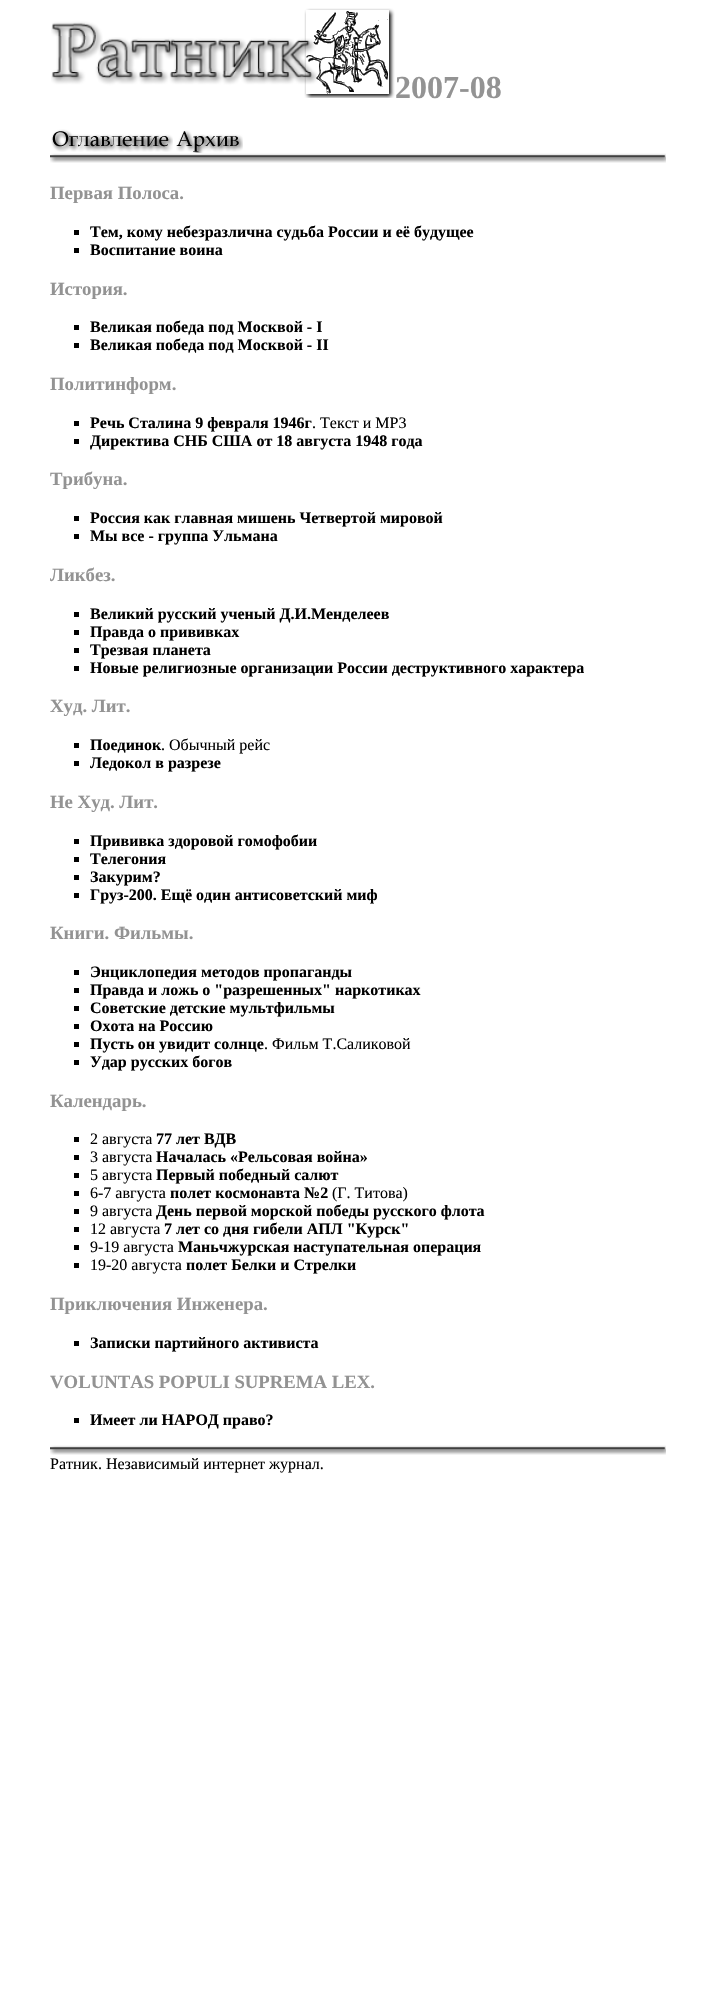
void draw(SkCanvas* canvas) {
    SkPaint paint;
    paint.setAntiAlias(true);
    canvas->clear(0xFFFFFFFF);
    canvas->drawImageRect(SkImages::DeferredFromEncodedData(SkData::MakeFromFileName("img1.png")), SkRect::MakeXYWH(51, 8, 344, 90), SkSamplingOptions());
    SkFont font1(fontMgr->matchFamilyStyle("Liberation Serif", SkFontStyle::Bold()), 32);
    font1.setSubpixel(true);
    paint.setColor(0xFF939393);
    canvas->drawString("2007-08", 395, 98, font1, paint);
    canvas->drawImageRect(SkImages::DeferredFromEncodedData(SkData::MakeFromFileName("img2.png")), SkRect::MakeXYWH(51, 129, 122, 23), SkSamplingOptions());
    canvas->drawImageRect(SkImages::DeferredFromEncodedData(SkData::MakeFromFileName("img3.png")), SkRect::MakeXYWH(176, 130, 67, 23), SkSamplingOptions());
    canvas->drawImageRect(SkImages::DeferredFromEncodedData(SkData::MakeFromFileName("img4.png")), SkRect::MakeXYWH(50, 153, 616, 10), SkSamplingOptions());
    SkFont font2(fontMgr->matchFamilyStyle("Liberation Serif", SkFontStyle::Bold()), 18.75f);
    font2.setSubpixel(true);
    canvas->drawString("Первая Полоса.", 50, 199, font2, paint);
    paint.setColor(0xFF000000);
    canvas->drawRect(SkRect::MakeXYWH(74, 230, 5, 5), paint);
    SkFont font3(fontMgr->matchFamilyStyle("Liberation Serif", SkFontStyle::Bold()), 16);
    font3.setSubpixel(true);
    canvas->drawString("Тем, кому небезразлична судьба России и её будущее", 90, 237, font3, paint);
    canvas->drawRect(SkRect::MakeXYWH(74, 248, 5, 5), paint);
    canvas->drawString("Воспитание воина", 90, 255, font3, paint);
    paint.setColor(0xFF939393);
    canvas->drawString("История.", 50, 295, font2, paint);
    paint.setColor(0xFF000000);
    canvas->drawRect(SkRect::MakeXYWH(74, 325, 5, 5), paint);
    canvas->drawString("Великая победа под Москвой - I", 90, 332, font3, paint);
    canvas->drawRect(SkRect::MakeXYWH(74, 343, 5, 5), paint);
    canvas->drawString("Великая победа под Москвой - II", 90, 350, font3, paint);
    paint.setColor(0xFF939393);
    canvas->drawString("Политинформ.", 50, 390, font2, paint);
    paint.setColor(0xFF000000);
    canvas->drawRect(SkRect::MakeXYWH(74, 421, 5, 5), paint);
    canvas->drawString("Речь Сталина 9 февраля 1946г", 90, 428, font3, paint);
    SkFont font4(fontMgr->matchFamilyStyle("Liberation Serif", SkFontStyle::Normal()), 16);
    font4.setSubpixel(true);
    canvas->drawString(". Текст и MP3", 312, 428, font4, paint);
    canvas->drawRect(SkRect::MakeXYWH(74, 439, 5, 5), paint);
    canvas->drawString("Директива СНБ США от 18 августа 1948 года", 90, 446, font3, paint);
    paint.setColor(0xFF939393);
    canvas->drawString("Трибуна.", 50, 485, font2, paint);
    paint.setColor(0xFF000000);
    canvas->drawRect(SkRect::MakeXYWH(74, 516, 5, 5), paint);
    canvas->drawString("Россия как главная мишень Четвертой мировой", 90, 523, font3, paint);
    canvas->drawRect(SkRect::MakeXYWH(74, 534, 5, 5), paint);
    canvas->drawString("Мы все - группа Ульмана", 90, 541, font3, paint);
    paint.setColor(0xFF939393);
    canvas->drawString("Ликбез.", 50, 581, font2, paint);
    paint.setColor(0xFF000000);
    canvas->drawRect(SkRect::MakeXYWH(74, 612, 5, 5), paint);
    canvas->drawString("Великий русский ученый Д.И.Менделеев", 90, 619, font3, paint);
    canvas->drawRect(SkRect::MakeXYWH(74, 630, 5, 5), paint);
    canvas->drawString("Правда о прививках", 90, 637, font3, paint);
    canvas->drawRect(SkRect::MakeXYWH(74, 648, 5, 5), paint);
    canvas->drawString("Трезвая планета", 90, 655, font3, paint);
    canvas->drawRect(SkRect::MakeXYWH(74, 666, 5, 5), paint);
    canvas->drawString("Новые религиозные организации России деструктивного характера", 90, 673, font3, paint);
    paint.setColor(0xFF939393);
    canvas->drawString("Худ. Лит.", 50, 712, font2, paint);
    paint.setColor(0xFF000000);
    canvas->drawRect(SkRect::MakeXYWH(74, 743, 5, 5), paint);
    canvas->drawString("Поединок", 90, 750, font3, paint);
    canvas->drawString(". Обычный рейс", 161, 750, font4, paint);
    canvas->drawRect(SkRect::MakeXYWH(74, 761, 5, 5), paint);
    canvas->drawString("Ледокол в разрезе", 90, 768, font3, paint);
    paint.setColor(0xFF939393);
    canvas->drawString("Не Худ. Лит.", 50, 808, font2, paint);
    paint.setColor(0xFF000000);
    canvas->drawRect(SkRect::MakeXYWH(74, 839, 5, 5), paint);
    canvas->drawString("Прививка здоровой гомофобии", 90, 846, font3, paint);
    canvas->drawRect(SkRect::MakeXYWH(74, 857, 5, 5), paint);
    canvas->drawString("Телегония", 90, 864, font3, paint);
    canvas->drawRect(SkRect::MakeXYWH(74, 875, 5, 5), paint);
    canvas->drawString("Закурим?", 90, 882, font3, paint);
    canvas->drawRect(SkRect::MakeXYWH(74, 893, 5, 5), paint);
    canvas->drawString("Груз-200. Ещё один антисоветский миф", 90, 900, font3, paint);
    paint.setColor(0xFF939393);
    canvas->drawString("Книги. Фильмы.", 50, 939, font2, paint);
    paint.setColor(0xFF000000);
    canvas->drawRect(SkRect::MakeXYWH(74, 970, 5, 5), paint);
    canvas->drawString("Энциклопедия методов пропаганды", 90, 977, font3, paint);
    canvas->drawRect(SkRect::MakeXYWH(74, 988, 5, 5), paint);
    canvas->drawString("Правда и ложь о \"разрешенных\" наркотиках", 90, 995, font3, paint);
    canvas->drawRect(SkRect::MakeXYWH(74, 1006, 5, 5), paint);
    canvas->drawString("Советские детские мультфильмы", 90, 1013, font3, paint);
    canvas->drawRect(SkRect::MakeXYWH(74, 1024, 5, 5), paint);
    canvas->drawString("Охота на Россию", 90, 1031, font3, paint);
    canvas->drawRect(SkRect::MakeXYWH(74, 1042, 5, 5), paint);
    canvas->drawString("Пусть он увидит солнце", 90, 1049, font3, paint);
    canvas->drawString(". Фильм Т.Саликовой", 264, 1049, font4, paint);
    canvas->drawRect(SkRect::MakeXYWH(74, 1060, 5, 5), paint);
    canvas->drawString("Удар русских богов", 90, 1067, font3, paint);
    paint.setColor(0xFF939393);
    canvas->drawString("Календарь.", 50, 1107, font2, paint);
    paint.setColor(0xFF000000);
    canvas->drawRect(SkRect::MakeXYWH(74, 1137, 5, 5), paint);
    canvas->drawString("2 августа", 90, 1144, font4, paint);
    canvas->drawString("77 лет ВДВ", 156, 1144, font3, paint);
    canvas->drawRect(SkRect::MakeXYWH(74, 1155, 5, 5), paint);
    canvas->drawString("3 августа", 90, 1162, font4, paint);
    canvas->drawString("Началась «Рельсовая война»", 156, 1162, font3, paint);
    canvas->drawRect(SkRect::MakeXYWH(74, 1173, 5, 5), paint);
    canvas->drawString("5 августа", 90, 1180, font4, paint);
    canvas->drawString("Первый победный салют", 156, 1180, font3, paint);
    canvas->drawRect(SkRect::MakeXYWH(74, 1191, 5, 5), paint);
    canvas->drawString("6-7 августа", 90, 1198, font4, paint);
    canvas->drawString("полет космонавта №2", 170, 1198, font3, paint);
    canvas->drawString("(Г. Титова)", 332, 1198, font4, paint);
    canvas->drawRect(SkRect::MakeXYWH(74, 1209, 5, 5), paint);
    canvas->drawString("9 августа", 90, 1216, font4, paint);
    canvas->drawString("День первой морской победы русского флота", 156, 1216, font3, paint);
    canvas->drawRect(SkRect::MakeXYWH(74, 1227, 5, 5), paint);
    canvas->drawString("12 августа", 90, 1234, font4, paint);
    canvas->drawString("7 лет со дня гибели АПЛ \"Курск\"", 164, 1234, font3, paint);
    canvas->drawRect(SkRect::MakeXYWH(74, 1245, 5, 5), paint);
    canvas->drawString("9-19 августа", 90, 1252, font4, paint);
    canvas->drawString("Маньчжурская наступательная операция", 178, 1252, font3, paint);
    canvas->drawRect(SkRect::MakeXYWH(74, 1263, 5, 5), paint);
    canvas->drawString("19-20 августа", 90, 1270, font4, paint);
    canvas->drawString("полет Белки и Стрелки", 186, 1270, font3, paint);
    paint.setColor(0xFF939393);
    canvas->drawString("Приключения Инженера.", 50, 1310, font2, paint);
    paint.setColor(0xFF000000);
    canvas->drawRect(SkRect::MakeXYWH(74, 1341, 5, 5), paint);
    canvas->drawString("Записки партийного активиста", 90, 1348, font3, paint);
    paint.setColor(0xFF939393);
    canvas->drawString("VOLUNTAS POPULI SUPREMA LEX.", 50, 1388, font2, paint);
    paint.setColor(0xFF000000);
    canvas->drawRect(SkRect::MakeXYWH(74, 1418, 5, 5), paint);
    canvas->drawString("Имеет ли НАРОД право?", 90, 1425, font3, paint);
    canvas->drawImageRect(SkImages::DeferredFromEncodedData(SkData::MakeFromFileName("img4.png")), SkRect::MakeXYWH(50, 1445, 616, 10), SkSamplingOptions());
    canvas->drawString("Ратник. Независимый интернет журнал.", 50, 1469, font4, paint);
}
